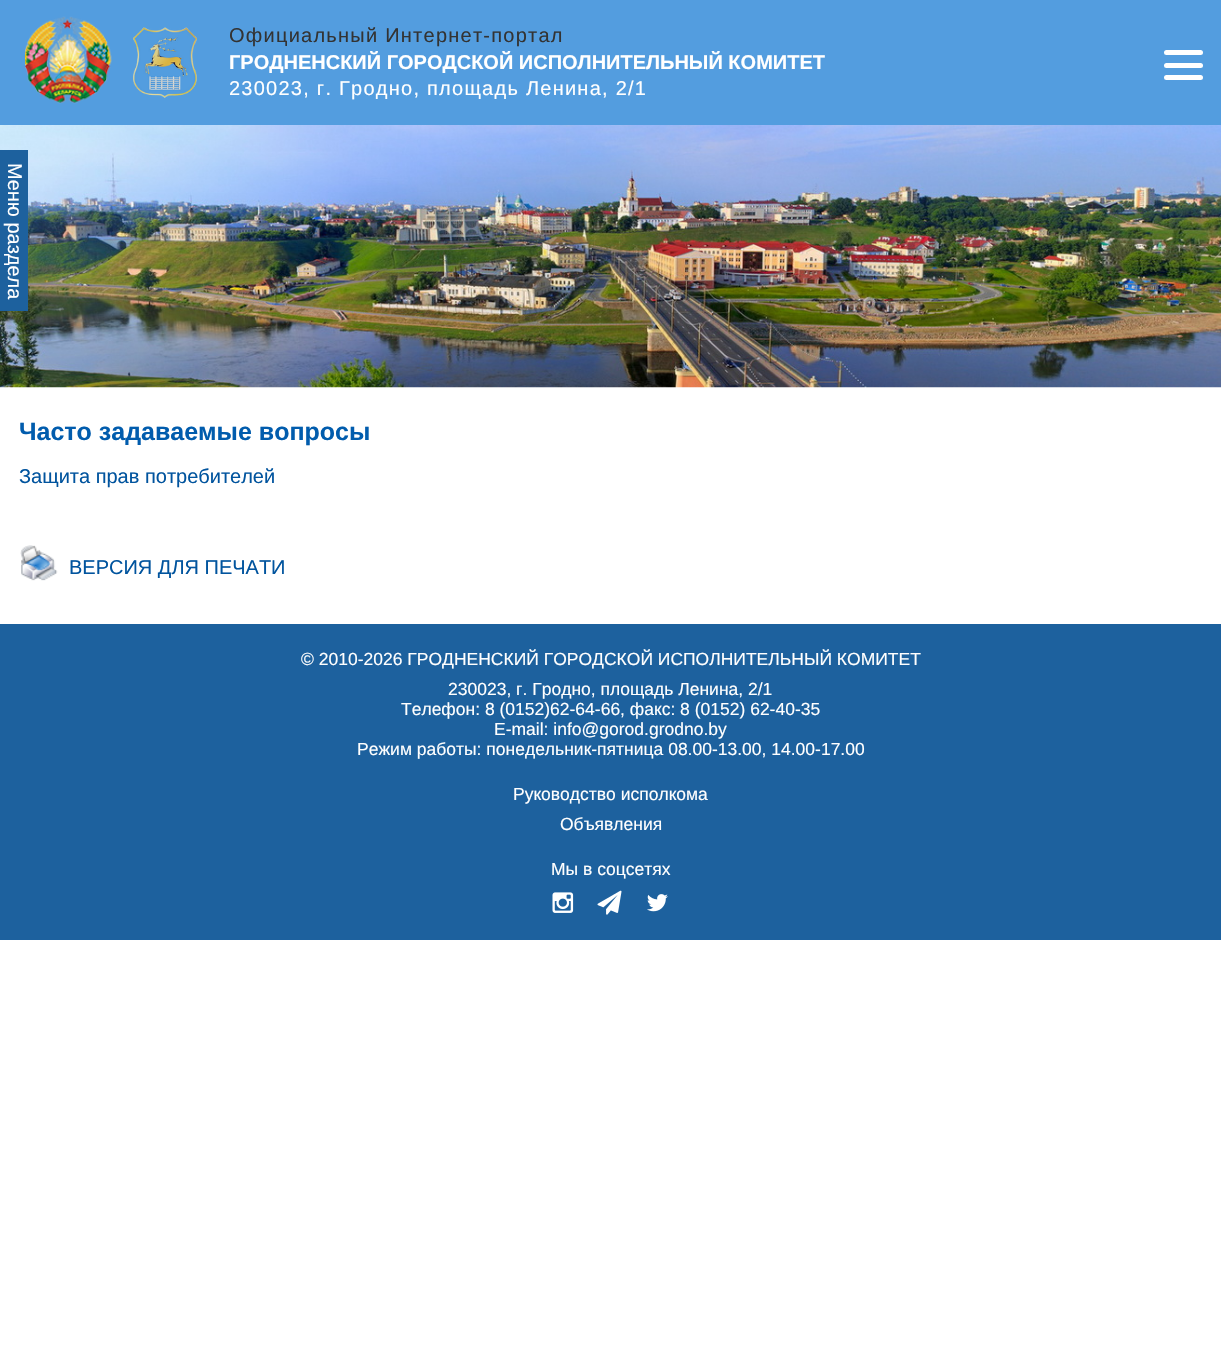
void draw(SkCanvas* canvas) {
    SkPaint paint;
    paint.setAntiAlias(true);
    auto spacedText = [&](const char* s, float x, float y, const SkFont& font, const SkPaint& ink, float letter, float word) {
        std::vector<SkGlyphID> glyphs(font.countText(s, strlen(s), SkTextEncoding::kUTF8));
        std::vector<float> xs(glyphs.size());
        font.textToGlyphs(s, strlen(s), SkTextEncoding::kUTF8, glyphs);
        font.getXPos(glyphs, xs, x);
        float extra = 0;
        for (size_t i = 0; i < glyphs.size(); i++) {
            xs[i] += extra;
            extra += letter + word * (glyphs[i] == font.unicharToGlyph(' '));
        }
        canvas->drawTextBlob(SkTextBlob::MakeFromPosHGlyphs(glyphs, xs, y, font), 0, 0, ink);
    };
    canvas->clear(0xFFFFFFFF);
    paint.setColor(0xFF539DDF);
    canvas->drawRect(SkRect::MakeXYWH(0, 0, 1221, 125), paint);
    canvas->drawImageRect(SkImages::DeferredFromEncodedData(SkData::MakeFromFileName("img1.png")), SkRect::MakeXYWH(25, 16, 87, 88), SkSamplingOptions());
    canvas->drawImageRect(SkImages::DeferredFromEncodedData(SkData::MakeFromFileName("img2.png")), SkRect::MakeXYWH(133, 27, 64, 71), SkSamplingOptions());
    SkFont font1(fontMgr->matchFamilyStyle("Liberation Sans", SkFontStyle::Normal()), 20);
    font1.setSubpixel(true);
    paint.setColor(0xFF333333);
    spacedText("Официальный Интернет-портал", 229, 42, font1, paint, 1.25f, 0);
    SkFont font2(fontMgr->matchFamilyStyle("Liberation Sans", SkFontStyle::Bold()), 20);
    font2.setSubpixel(true);
    paint.setColor(0xFFFFFFFF);
    canvas->drawString("ГРОДНЕНСКИЙ ГОРОДСКОЙ ИСПОЛНИТЕЛЬНЫЙ КОМИТЕТ", 229, 69, font2, paint);
    spacedText("230023, г. Гродно, площадь Ленина, 2/1", 229, 95, font1, paint, 1.25f, 0);
    canvas->drawRoundRect(SkRect::MakeXYWH(1164, 63, 39, 5), 2.5f, 2.5f, paint);
    canvas->drawRoundRect(SkRect::MakeXYWH(1164, 50, 39, 5), 2.5f, 2.5f, paint);
    canvas->drawRoundRect(SkRect::MakeXYWH(1164, 75, 39, 5), 2.5f, 2.5f, paint);
    canvas->drawImageRect(SkImages::DeferredFromEncodedData(SkData::MakeFromFileName("img3.png")), SkRect::MakeXYWH(0, 125, 1221, 263), SkSamplingOptions());
    paint.setColor(0xFF1D619E);
    canvas->drawRect(SkRect::MakeXYWH(0, 150, 28, 161), paint);
    paint.setColor(0xFFFFFFFF);
    canvas->save();
    canvas->rotate(90, 8, 163);
    canvas->drawString("Меню раздела", 8, 163, font1, paint);
    canvas->restore();
    SkFont font3(fontMgr->matchFamilyStyle("Liberation Sans", SkFontStyle::Bold()), 25);
    font3.setSubpixel(true);
    paint.setColor(0xFF015CAD);
    canvas->drawString("Часто задаваемые вопросы", 19, 440, font3, paint);
    paint.setColor(0xFF01549E);
    canvas->drawString("Защита прав потребителей", 19, 483, font1, paint);
    canvas->drawImageRect(SkImages::DeferredFromEncodedData(SkData::MakeFromFileName("img4.png")), SkRect::MakeXYWH(20, 545, 38, 36), SkSamplingOptions());
    canvas->drawString("ВЕРСИЯ ДЛЯ ПЕЧАТИ", 69, 574, font1, paint);
    paint.setColor(0xFF1D619E);
    canvas->drawRect(SkRect::MakeXYWH(0, 624, 1221, 316), paint);
    SkFont font4(fontMgr->matchFamilyStyle("Liberation Sans", SkFontStyle::Normal()), 17.5f);
    font4.setSubpixel(true);
    paint.setColor(0xFFFFFFFF);
    canvas->drawString("© 2010-2026 ГРОДНЕНСКИЙ ГОРОДСКОЙ ИСПОЛНИТЕЛЬНЫЙ КОМИТЕТ", 301, 665, font4, paint);
    canvas->drawString("230023, г. Гродно, площадь Ленина, 2/1", 448, 695, font4, paint);
    canvas->drawString("Телефон: 8 (0152)62-64-66, факс: 8 (0152) 62-40-35", 401, 715, font4, paint);
    canvas->drawString("E-mail: info@gorod.grodno.by", 494, 735, font4, paint);
    canvas->drawString("Режим работы: понедельник-пятница 08.00-13.00, 14.00-17.00", 357, 755, font4, paint);
    canvas->drawString("Руководство исполкома", 513, 800, font4, paint);
    canvas->drawString("Объявления", 560, 830, font4, paint);
    canvas->drawString("Мы в соцсетях", 551, 875, font4, paint);
    canvas->drawImageRect(SkImages::DeferredFromEncodedData(SkData::MakeFromFileName("img5.png")), SkRect::MakeXYWH(552, 892, 22, 21), SkSamplingOptions());
    canvas->drawImageRect(SkImages::DeferredFromEncodedData(SkData::MakeFromFileName("img6.png")), SkRect::MakeXYWH(597, 890, 25, 25), SkSamplingOptions());
    canvas->drawImageRect(SkImages::DeferredFromEncodedData(SkData::MakeFromFileName("img7.png")), SkRect::MakeXYWH(647, 894, 21, 18), SkSamplingOptions());
}
